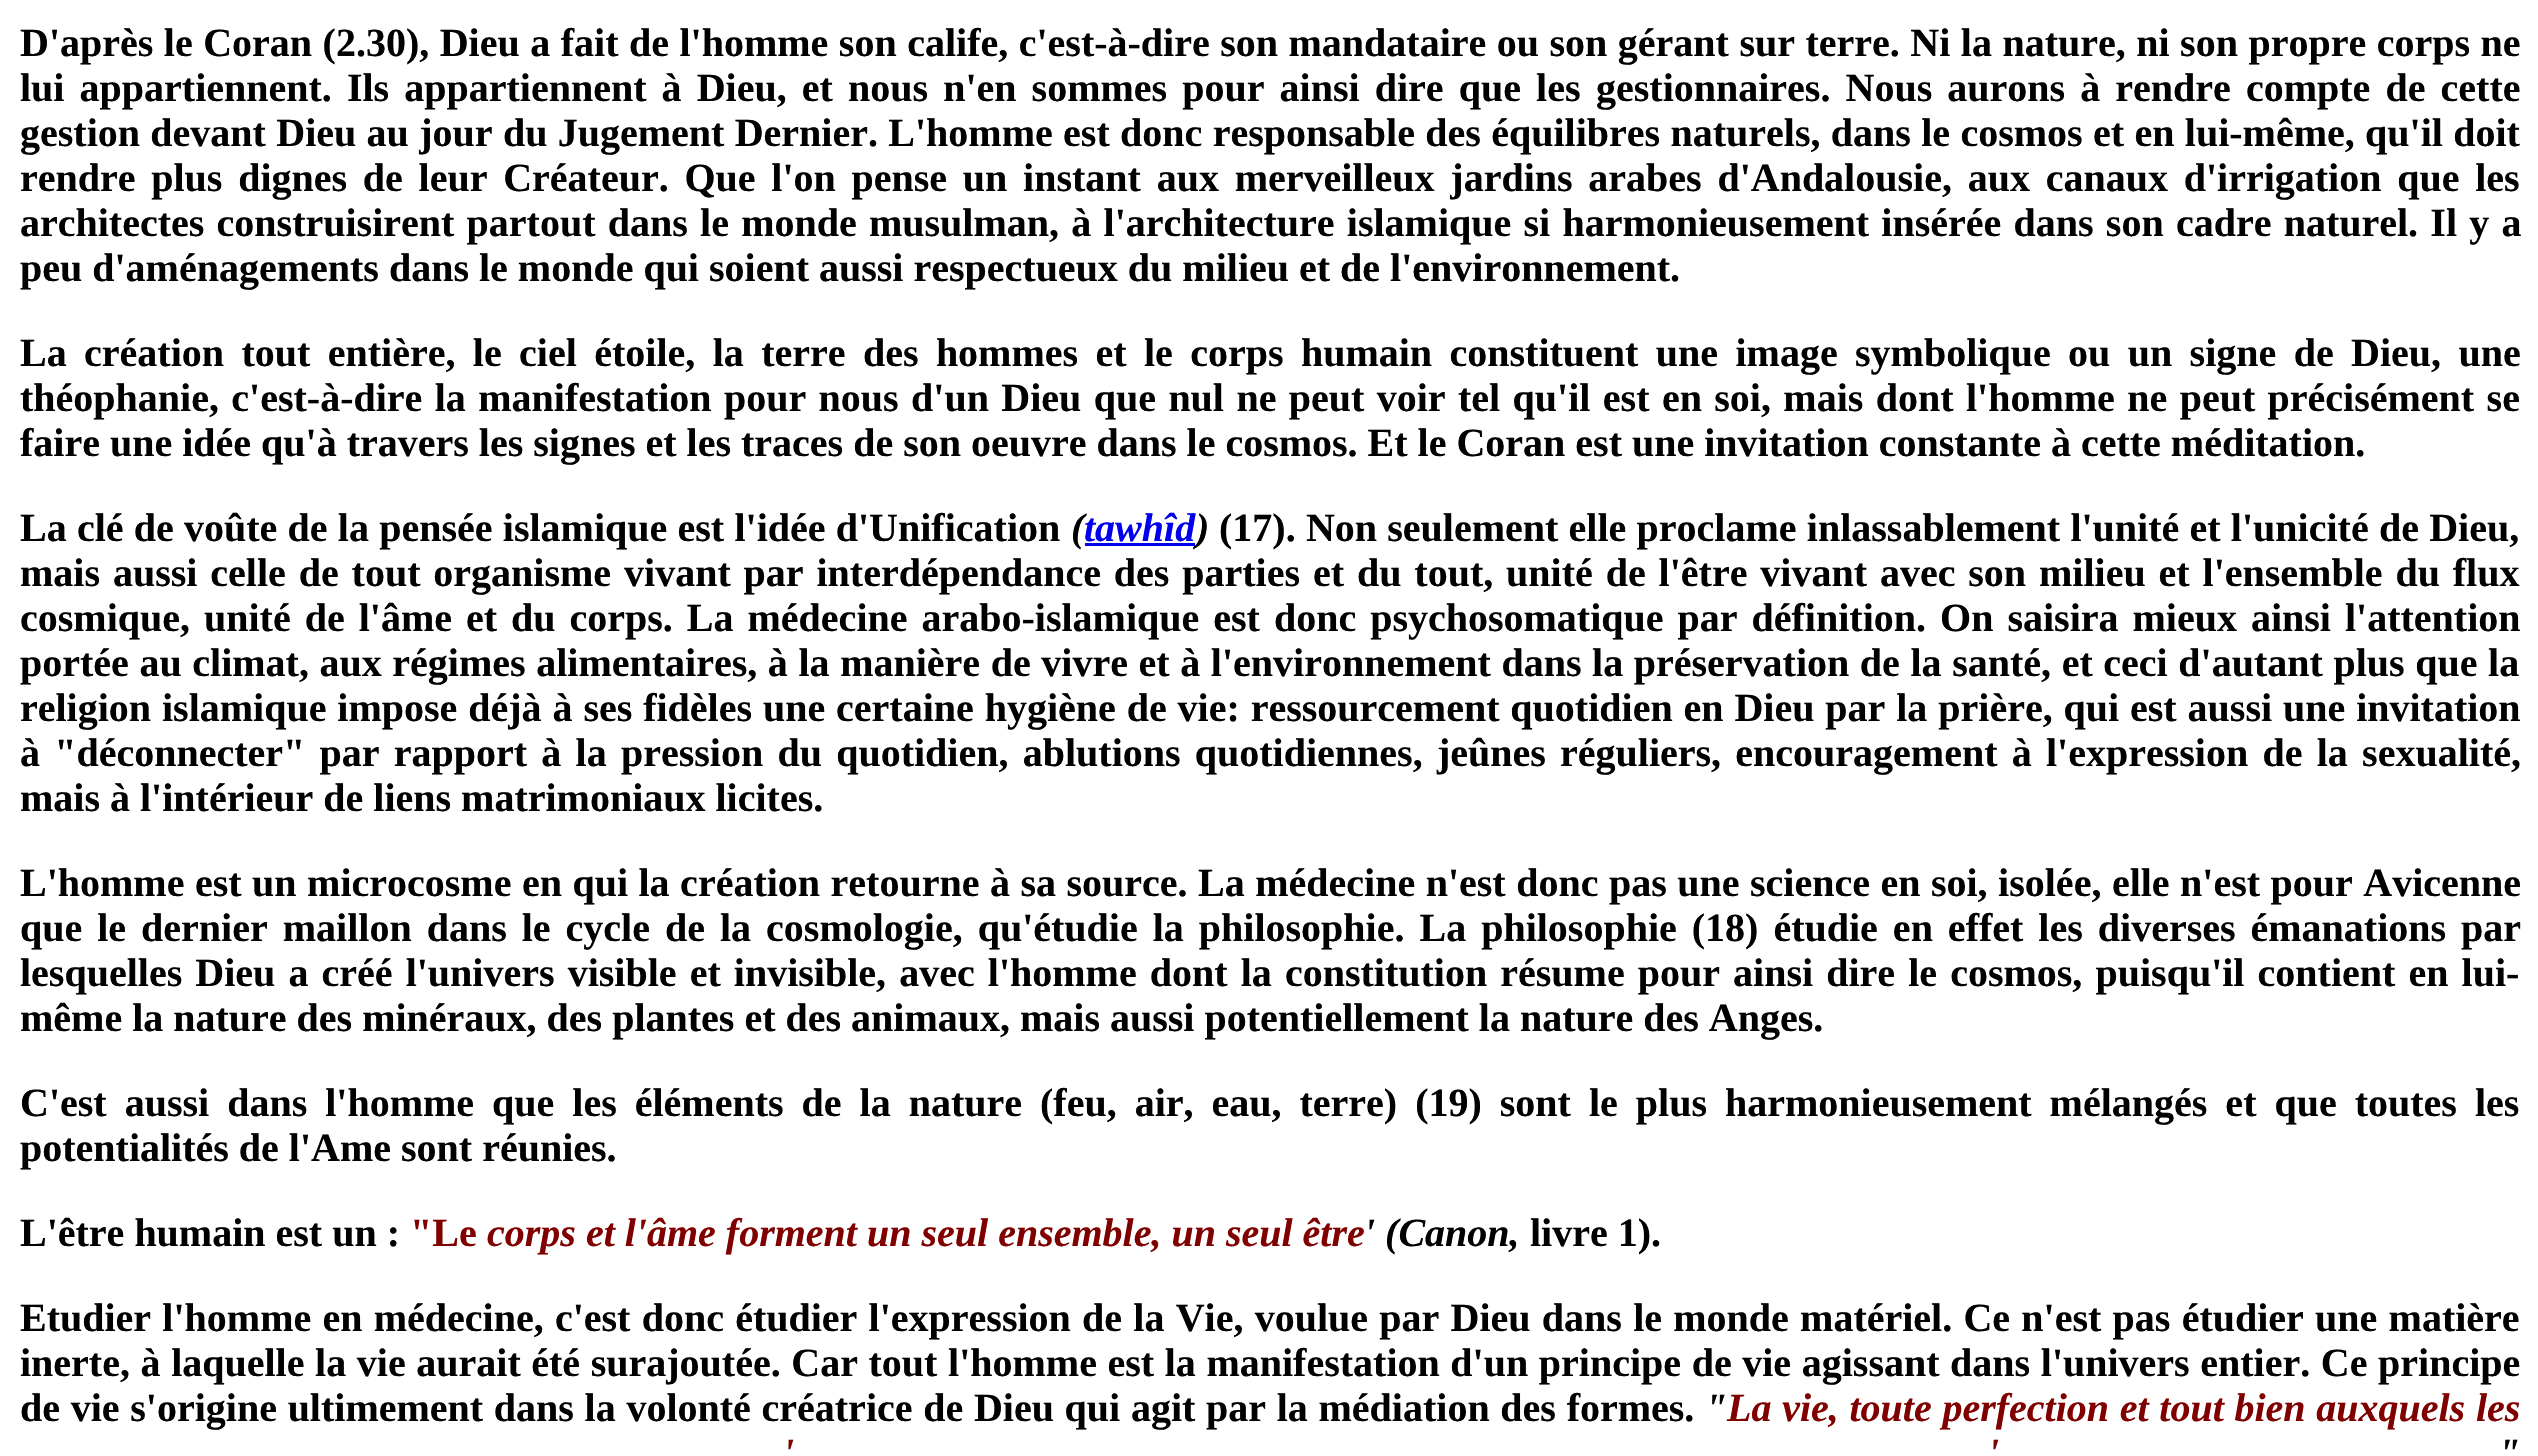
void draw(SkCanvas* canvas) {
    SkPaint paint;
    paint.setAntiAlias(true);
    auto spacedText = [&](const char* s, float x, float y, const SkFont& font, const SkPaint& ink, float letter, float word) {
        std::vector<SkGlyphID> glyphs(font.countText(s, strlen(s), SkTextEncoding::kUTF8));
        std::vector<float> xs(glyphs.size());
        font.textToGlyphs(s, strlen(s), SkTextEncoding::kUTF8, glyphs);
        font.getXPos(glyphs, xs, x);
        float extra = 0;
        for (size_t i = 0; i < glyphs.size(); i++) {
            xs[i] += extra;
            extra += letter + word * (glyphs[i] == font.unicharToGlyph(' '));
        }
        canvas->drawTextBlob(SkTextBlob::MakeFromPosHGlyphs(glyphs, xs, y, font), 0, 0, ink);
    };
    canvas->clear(0xFFFFFFFF);
    SkFont font1(fontMgr->matchFamilyStyle("Liberation Serif", SkFontStyle::Bold()), 40);
    font1.setSubpixel(true);
    paint.setColor(0xFF000000);
    spacedText("D'après le Coran (2.30), Dieu a fait de l'homme son calife, c'est-à-dire son mandataire ou son gérant sur terre. Ni la nature, ni son propre corps ne", 20, 56, font1, paint, 0, 0.5f);
    spacedText("lui appartiennent. Ils appartiennent à Dieu, et nous n'en sommes pour ainsi dire que les", 20, 101, font1, paint, 0, 5.1f);
    spacedText("gestionnaires. Nous aurons à rendre compte de cette", 1596, 101, font1, paint, 0, 5.1f);
    spacedText("gestion devant Dieu au jour du Jugement Dernier. L'homme est donc responsable des équilibres naturels, dans le cosmos et en lui-même, qu'il doit", 20, 146, font1, paint, 0, 0.35f);
    spacedText("rendre plus dignes de leur Créateur. Que l'on pense un instant aux merveilleux jardins arabes d'Andalousie, aux canaux d'irrigation que les", 20, 191, font1, paint, 0, 5.75f);
    spacedText("architectes construisirent partout dans le monde musulman, à l'architecture islamique si harmonieusement insérée dans son cadre naturel. Il y a", 20, 236, font1, paint, 0, 2.25f);
    canvas->drawString("peu d'aménagements dans le monde qui soient aussi respectueux du milieu et de l'environnement.", 20, 281, font1, paint);
    spacedText("La création tout entière, le ciel étoile, la terre des hommes et le corps humain constituent une image symbolique ou un signe de Dieu, une", 20, 366, font1, paint, 0, 7.4f);
    spacedText("théophanie, c'est-à-dire la manifestation pour nous d'un Dieu que nul ne peut voir tel qu'il est en soi, mais dont l'homme ne peut précisément se", 20, 411, font1, paint, 0, 2.4f);
    canvas->drawString("faire une idée qu'à travers les signes et les traces de son oeuvre dans le cosmos. Et le Coran est une invitation constante à cette méditation.", 20, 456, font1, paint);
    spacedText("La clé de voûte de la pensée islamique est l'idée d'Unification", 20, 541, font1, paint, 0, 0.25f);
    SkFont font2(fontMgr->matchFamilyStyle("Liberation Serif", SkFontStyle::BoldItalic()), 40);
    font2.setSubpixel(true);
    canvas->drawString("(", 1071, 541, font2, paint);
    paint.setColor(0xFF0000EE);
    canvas->drawRect(SkRect::MakeXYWH(1085, 543, 110, 3), paint);
    canvas->drawString("tawhîd", 1084, 541, font2, paint);
    paint.setColor(0xFF000000);
    canvas->drawString(")", 1196, 541, font2, paint);
    spacedText("(17). Non seulement elle proclame inlassablement l'unité et l'unicité de Dieu,", 1219, 541, font1, paint, 0, 0.25f);
    spacedText("mais aussi celle de tout organisme vivant par interdépendance des parties et du tout, unité de l'être vivant avec son milieu et l'ensemble du flux", 20, 586, font1, paint, 0, 2.9f);
    spacedText("cosmique, unité de l'âme et du corps. La médecine arabo-islamique est donc psychosomatique par définition. On saisira mieux ainsi l'attention", 20, 631, font1, paint, 0, 4);
    spacedText("portée au climat, aux régimes alimentaires, à la manière de vivre et à l'environnement dans la préservation de la santé, et ceci d'autant plus que la", 20, 676, font1, paint, 0, 0.6f);
    spacedText("religion islamique impose déjà à ses fidèles une certaine hygiène de vie: ressourcement quotidien en Dieu par la prière, qui est aussi une invitation", 20, 721, font1, paint, 0, 0.9f);
    spacedText("à \"déconnecter\" par rapport à la pression du quotidien, ablutions quotidiennes, jeûnes réguliers, encouragement à l'expression de la sexualité,", 20, 766, font1, paint, 0, 4.25f);
    canvas->drawString("mais à l'intérieur de liens matrimoniaux licites.", 20, 811, font1, paint);
    spacedText("L'homme est un microcosme en qui la création retourne à sa source. La médecine n'est donc pas une science en soi, isolée, elle n'est pour Avicenne", 20, 896, font1, paint, 0, 0.5f);
    spacedText("que le dernier maillon dans le cycle de la cosmologie, qu'étudie la philosophie. La philosophie (18) étudie en effet les diverses émanations par", 20, 941, font1, paint, 0, 5);
    spacedText("lesquelles Dieu a créé l'univers visible et invisible, avec l'homme dont la constitution résume pour ainsi dire le cosmos, puisqu'il contient en lui-", 20, 986, font1, paint, 0, 3.1f);
    canvas->drawString("même la nature des minéraux, des plantes et des animaux, mais aussi potentiellement la nature des Anges.", 20, 1031, font1, paint);
    spacedText("C'est aussi dans l'homme que les éléments de la nature (feu, air, eau, terre) (19) sont le plus harmonieusement mélangés et que toutes les", 20, 1116, font1, paint, 0, 8);
    canvas->drawString("potentialités de l'Ame sont réunies.", 20, 1161, font1, paint);
    canvas->drawString("L'être humain est un :", 20, 1246, font1, paint);
    paint.setColor(0xFF800000);
    canvas->drawString("\"Le", 410, 1246, font1, paint);
    canvas->drawString("corps et l'âme forment un seul ensemble, un seul être", 487, 1246, font2, paint);
    paint.setColor(0xFF000000);
    canvas->drawString("' (Canon,", 1364, 1246, font2, paint);
    canvas->drawString("livre 1).", 1530, 1246, font1, paint);
    spacedText("Etudier l'homme en médecine, c'est donc étudier l'expression de la Vie, voulue par Dieu dans le monde matériel. Ce n'est pas étudier une matière", 20, 1331, font1, paint, 0, 1.25f);
    spacedText("inerte, à laquelle la vie aurait été surajoutée. Car tout l'homme est la manifestation d'un principe de vie agissant dans l'univers entier. Ce principe", 20, 1376, font1, paint, 0, 0.6f);
    spacedText("de vie s'origine ultimement dans la volonté créatrice de Dieu qui agit par la médiation des formes.", 20, 1421, font1, paint, 0, 0.7f);
    canvas->drawString("\"", 1705, 1421, font2, paint);
    paint.setColor(0xFF800000);
    spacedText("La vie, toute perfection et tout bien auxquels les", 1727, 1421, font2, paint, 0, 0.7f);
    spacedText("'", 783, 1466, font2, paint, 0, 1);
    spacedText("'", 1988, 1466, font2, paint, 0, 1);
    paint.setColor(0xFF000000);
    canvas->drawString("\"", 2498, 1466, font2, paint);
}
